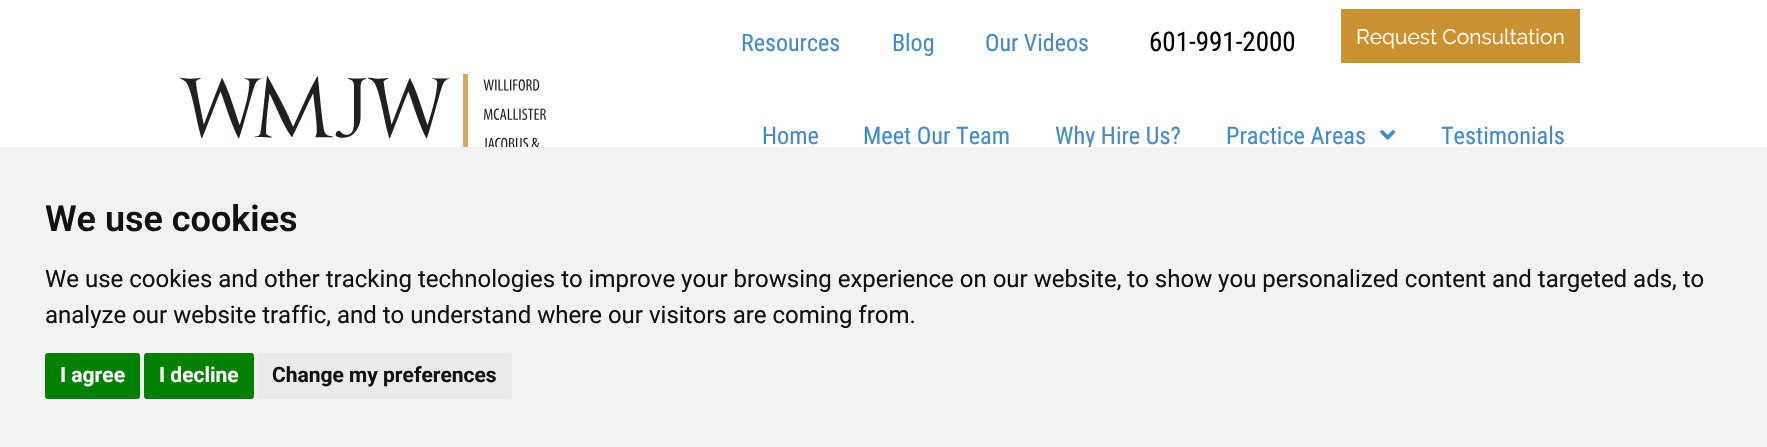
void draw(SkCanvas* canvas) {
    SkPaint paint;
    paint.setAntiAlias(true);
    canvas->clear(0xFFFFFFFF);
    canvas->drawImageRect(SkImages::DeferredFromEncodedData(SkData::MakeFromFileName("img1.png")), SkRect::MakeXYWH(180, 74, 366, 73), SkSamplingOptions());
    SkFont font1(fontMgr->matchFamilyStyle("Roboto Condensed", SkFontStyle::Normal()), 24);
    font1.setSubpixel(true);
    paint.setColor(0xFF428BCA);
    canvas->drawString("Resources", 741, 51, font1, paint);
    canvas->drawString("Blog", 892, 51, font1, paint);
    canvas->drawString("Our Videos", 985, 51, font1, paint);
    SkFont font2(fontMgr->matchFamilyStyle("Roboto Condensed", SkFontStyle::Normal()), 27);
    font2.setSubpixel(true);
    paint.setColor(0xFF000000);
    canvas->drawString("601-991-2000", 1149, 51, font2, paint);
    paint.setColor(0xFFCA9130);
    canvas->drawRect(SkRect::MakeXYWH(1341, 9, 239, 54), paint);
    SkFont font3(fontMgr->matchFamilyStyle("Raleway", SkFontStyle::Normal()), 21);
    font3.setSubpixel(true);
    paint.setColor(0xFFFFFFFF);
    canvas->drawString("Request Consultation", 1356, 44, font3, paint);
    SkFont font4(fontMgr->matchFamilyStyle("Roboto Condensed", SkFontStyle::Normal()), 24.25f);
    font4.setSubpixel(true);
    paint.setColor(0xFF428BCA);
    canvas->drawString("Home", 762, 144, font4, paint);
    canvas->drawString("Meet Our Team", 863, 144, font4, paint);
    canvas->drawString("Why Hire Us?", 1055, 144, font4, paint);
    canvas->drawString("Practice Areas", 1226, 144, font4, paint);
    canvas->drawImageRect(SkImages::DeferredFromEncodedData(SkData::MakeFromFileName("img2.png")), SkRect::MakeXYWH(1380, 130, 16, 10), SkSamplingOptions());
    canvas->drawString("Testimonials", 1441, 144, font4, paint);
    paint.setColor(0xFFF2F2F2);
    canvas->drawRect(SkRect::MakeXYWH(0, 147, 1767, 300), paint);
    SkFont font5(fontMgr->matchFamilyStyle("Roboto", SkFontStyle(600, SkFontStyle::kNormal_Width, SkFontStyle::kUpright_Slant)), 36);
    font5.setSubpixel(true);
    paint.setColor(0xFF111111);
    canvas->drawString("We use cookies", 45, 231, font5, paint);
    SkFont font6(fontMgr->matchFamilyStyle("Roboto", SkFontStyle::Normal()), 24);
    font6.setSubpixel(true);
    canvas->drawString("We use cookies and other tracking technologies to improve your browsing experience on our website, to show you personalized content and targeted ads, to", 45, 287, font6, paint);
    canvas->drawString("analyze our website traffic, and to understand where our visitors are coming from.", 45, 323, font6, paint);
    paint.setColor(0xFF008000);
    canvas->drawRoundRect(SkRect::MakeXYWH(45, 353, 95, 46), 3, 3, paint);
    SkFont font7(fontMgr->matchFamilyStyle("Roboto", SkFontStyle::Bold()), 21);
    font7.setSubpixel(true);
    paint.setColor(0xFFFFFFFF);
    canvas->drawString("I agree", 60, 382, font7, paint);
    paint.setColor(0xFF008000);
    canvas->drawRoundRect(SkRect::MakeXYWH(144, 353, 110, 46), 3, 3, paint);
    paint.setColor(0xFFFFFFFF);
    canvas->drawString("I decline", 159, 382, font7, paint);
    paint.setColor(0xFFEAEAEA);
    canvas->drawRoundRect(SkRect::MakeXYWH(257, 353, 255, 46), 3, 3, paint);
    paint.setColor(0xFF111111);
    canvas->drawString("Change my preferences", 272, 382, font7, paint);
}
